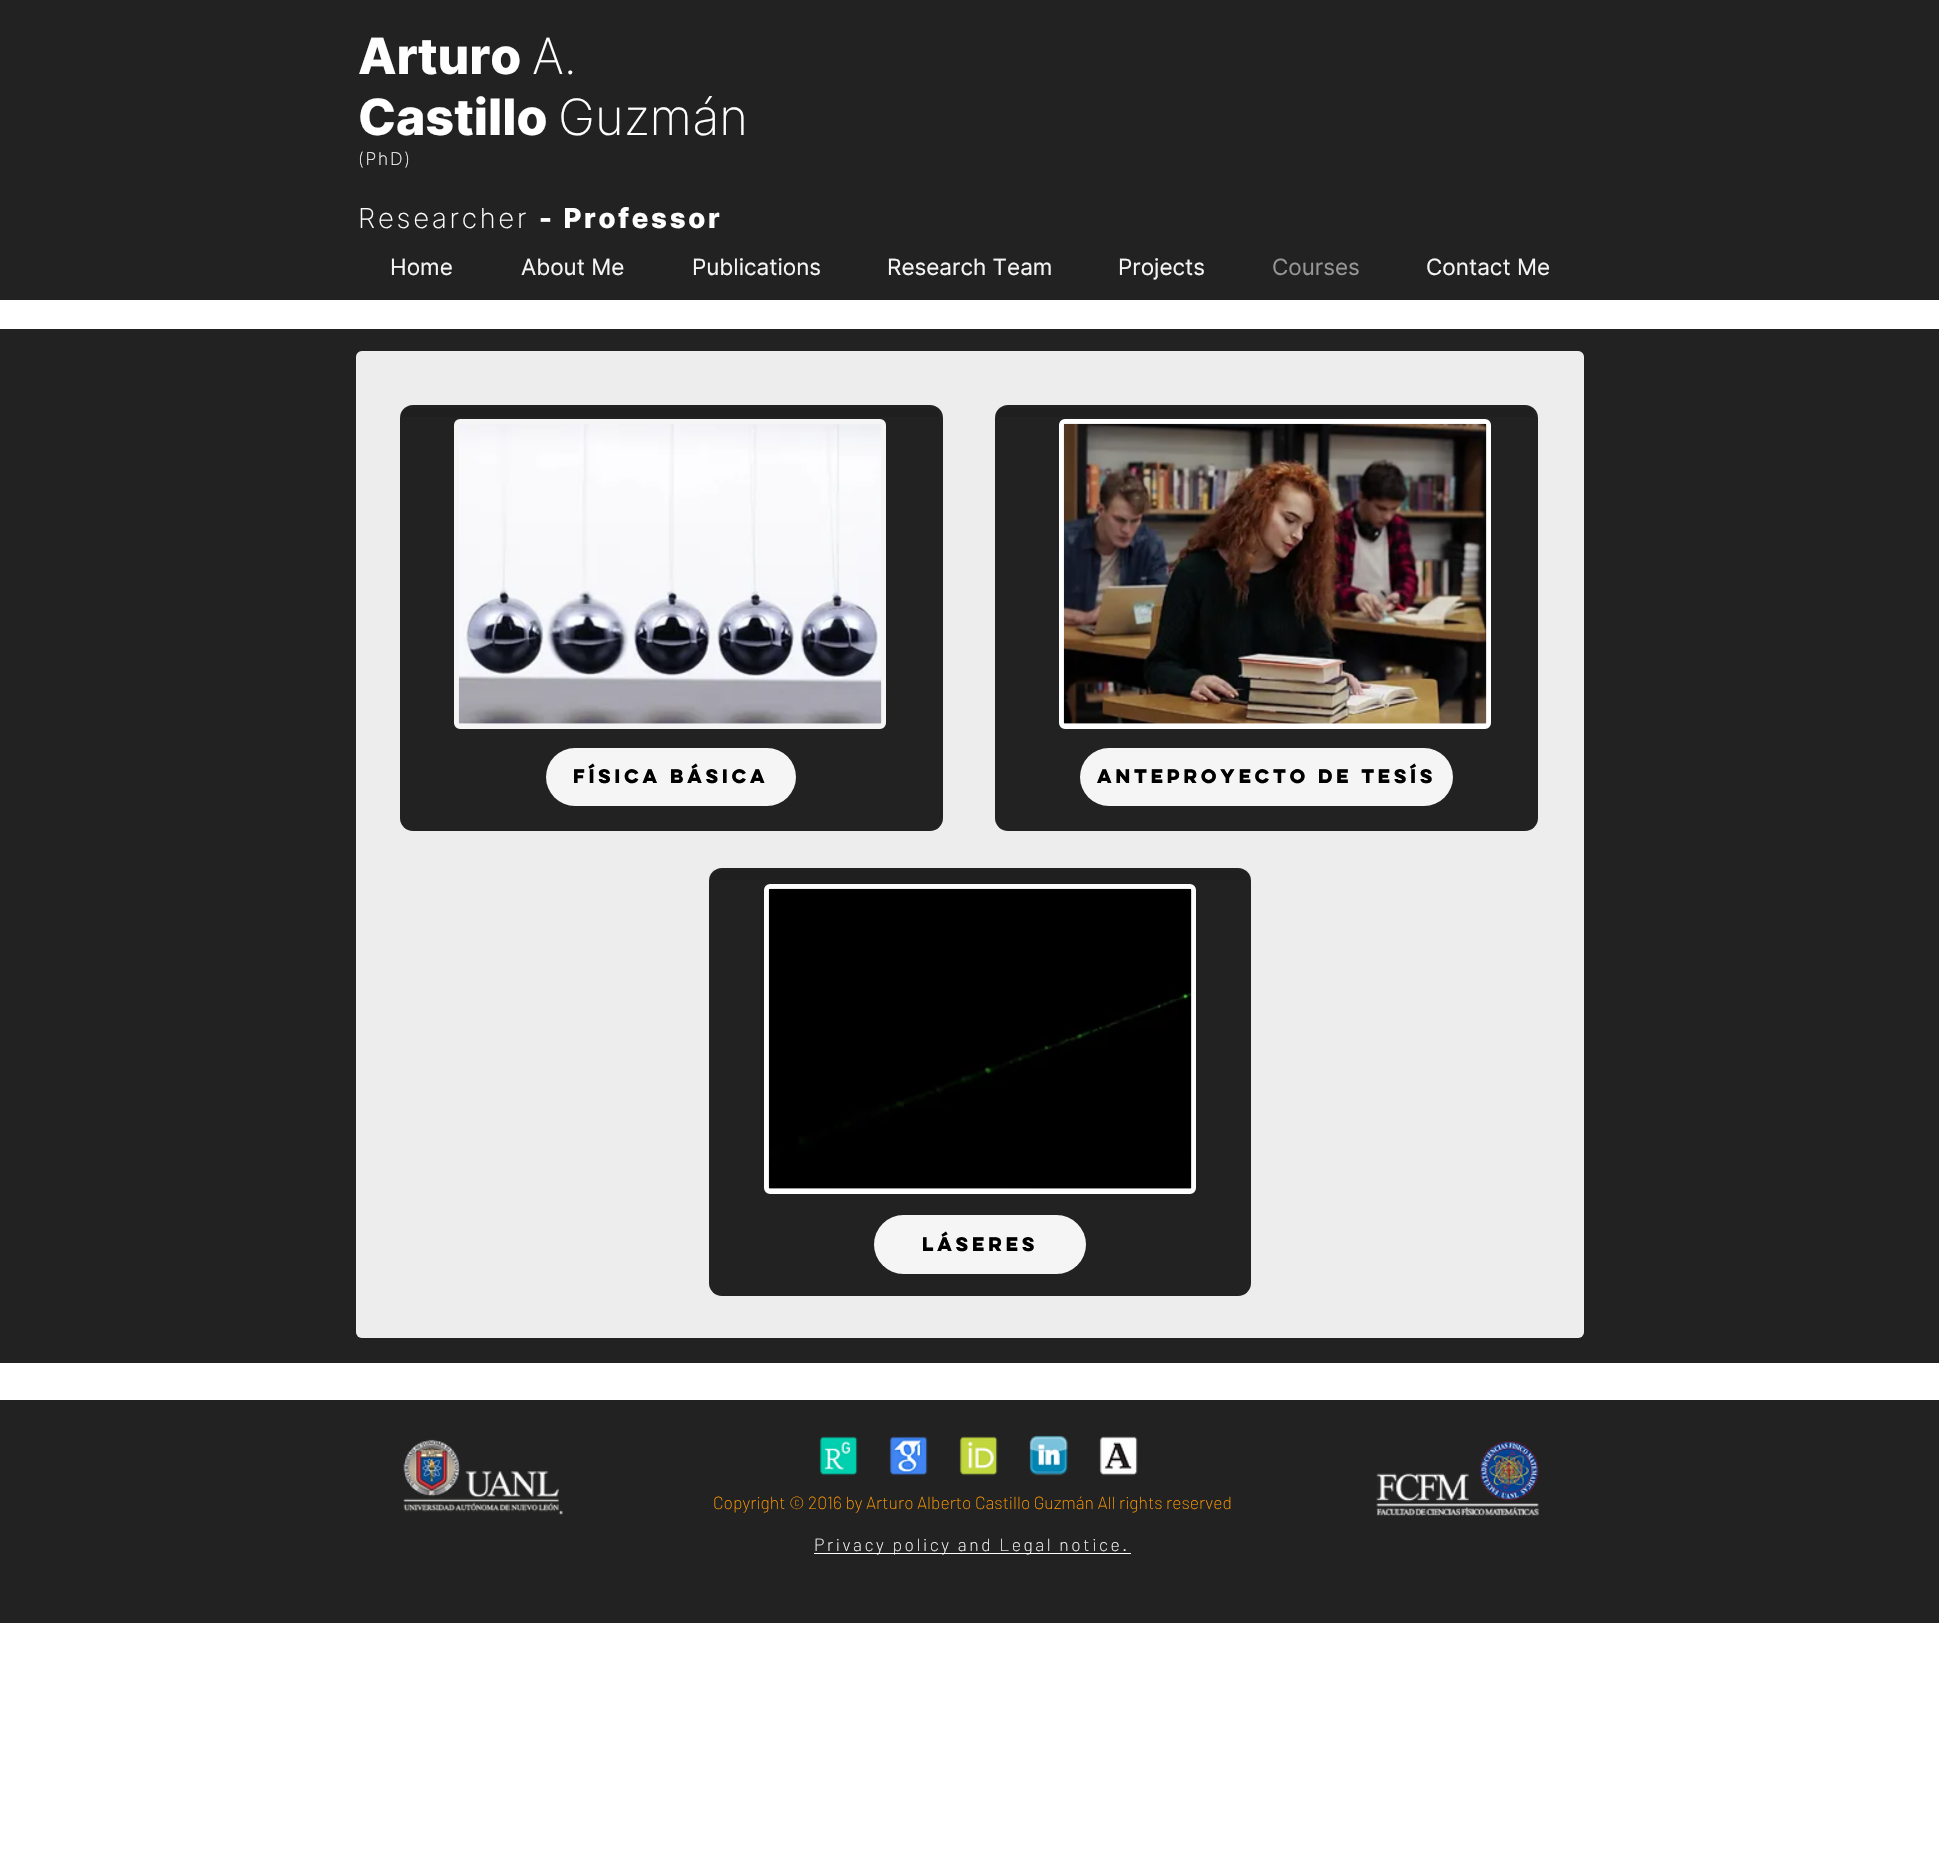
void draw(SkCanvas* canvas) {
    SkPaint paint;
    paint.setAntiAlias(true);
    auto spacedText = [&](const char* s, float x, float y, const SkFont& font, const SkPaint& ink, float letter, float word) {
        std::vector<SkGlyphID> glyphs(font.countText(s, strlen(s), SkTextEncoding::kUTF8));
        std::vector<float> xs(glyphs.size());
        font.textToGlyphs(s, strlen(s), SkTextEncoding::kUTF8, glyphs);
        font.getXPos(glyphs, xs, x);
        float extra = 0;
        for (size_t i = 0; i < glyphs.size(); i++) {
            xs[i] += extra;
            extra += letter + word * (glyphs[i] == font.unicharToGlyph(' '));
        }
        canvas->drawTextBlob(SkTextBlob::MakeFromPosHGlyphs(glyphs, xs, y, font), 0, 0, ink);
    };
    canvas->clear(0xFFFFFFFF);
    paint.setColor(0xFF222222);
    canvas->drawRect(SkRect::MakeXYWH(0, 0, 1939, 300), paint);
    SkFont font1(fontMgr->matchFamilyStyle("Inter", SkFontStyle(800, SkFontStyle::kNormal_Width, SkFontStyle::kUpright_Slant)), 50);
    font1.setSubpixel(true);
    paint.setColor(0xFFFFFFFF);
    canvas->drawString("Arturo", 358, 74, font1, paint);
    SkFont font2(fontMgr->matchFamilyStyle("Inter", SkFontStyle(200, SkFontStyle::kNormal_Width, SkFontStyle::kUpright_Slant)), 50);
    font2.setSubpixel(true);
    canvas->drawString("A.", 532, 74, font2, paint);
    canvas->drawString("Castillo", 358, 135, font1, paint);
    canvas->drawString("Guzmán", 558, 135, font2, paint);
    SkFont font3(fontMgr->matchFamilyStyle("Inter", SkFontStyle(200, SkFontStyle::kNormal_Width, SkFontStyle::kUpright_Slant)), 17.5f);
    font3.setSubpixel(true);
    spacedText("(PhD)", 358, 165, font3, paint, 1.75f, 0);
    SkFont font4(fontMgr->matchFamilyStyle("Inter", SkFontStyle(200, SkFontStyle::kNormal_Width, SkFontStyle::kUpright_Slant)), 27.5f);
    font4.setSubpixel(true);
    spacedText("Researcher", 358, 228, font4, paint, 2.75f, 0);
    SkFont font5(fontMgr->matchFamilyStyle("Inter", SkFontStyle(800, SkFontStyle::kNormal_Width, SkFontStyle::kUpright_Slant)), 27.5f);
    font5.setSubpixel(true);
    spacedText("- Professor", 539, 228, font5, paint, 2.75f, 0);
    SkFont font6(fontMgr->matchFamilyStyle("Inter", SkFontStyle::Normal()), 22.5f);
    font6.setSubpixel(true);
    paint.setColor(0xFFF5F5F5);
    canvas->drawString("Home", 390, 275, font6, paint);
    canvas->drawString("About Me", 521, 275, font6, paint);
    canvas->drawString("Publications", 692, 275, font6, paint);
    canvas->drawString("Research Team", 887, 275, font6, paint);
    canvas->drawString("Projects", 1118, 275, font6, paint);
    paint.setColor(0xFF969696);
    canvas->drawString("Courses", 1272, 275, font6, paint);
    paint.setColor(0xFFF5F5F5);
    canvas->drawString("Contact Me", 1426, 275, font6, paint);
    paint.setColor(0xFF222222);
    canvas->drawRect(SkRect::MakeXYWH(0, 329, 1939, 1034), paint);
    paint.setColor(0xFFEDEDED);
    canvas->drawRoundRect(SkRect::MakeXYWH(356, 351, 1228, 987), 6, 6, paint);
    paint.setStyle(SkPaint::kStroke_Style);
    paint.setStrokeWidth(1);
    paint.setColor(0x3BF5F5F5);
    canvas->drawRoundRect(SkRect::MakeXYWH(356.5f, 351.5f, 1227, 986), 5.5f, 5.5f, paint);
    paint.setStyle(SkPaint::kFill_Style);
    paint.setColor(0xFF222222);
    canvas->drawRoundRect(SkRect::MakeXYWH(400, 405, 543, 426), 13, 13, paint);
    canvas->drawImageRect(SkImages::DeferredFromEncodedData(SkData::MakeFromFileName("img1.png")), SkRect::MakeXYWH(400, 407, 539, 10), SkSamplingOptions());
    paint.setColor(0xFFF5F5F5);
    canvas->drawPath(SkPathBuilder().moveTo(460, 424).lineTo(459, 425).lineTo(459, 723).lineTo(460, 724).lineTo(880, 724).lineTo(881, 722).lineTo(461, 722).cubicTo(461, 722, 460, 722, 460, 721).close().detach(), paint);
    canvas->drawPath(SkPathBuilder().moveTo(459, 425).lineTo(879, 425).lineTo(880, 426).lineTo(880, 724).cubicTo(881, 724, 881, 724, 881, 723).lineTo(881, 425).cubicTo(881, 424, 881, 424, 880, 424).lineTo(460, 424).cubicTo(459, 424, 459, 424, 459, 425).close().detach(), paint);
    canvas->drawPath(SkPathBuilder().moveTo(461, 425).lineTo(881, 425).cubicTo(881, 424, 881, 424, 880, 424).lineTo(460, 424).cubicTo(459, 424, 459, 424, 459, 425).lineTo(459, 723).cubicTo(459, 724, 459, 724, 460, 724).lineTo(460, 426).close().detach(), paint);
    paint.setStyle(SkPaint::kStroke_Style);
    paint.setStrokeWidth(5);
    canvas->drawRoundRect(SkRect::MakeXYWH(456.5f, 421.5f, 427, 305), 3.5f, 3.5f, paint);
    canvas->drawImageRect(SkImages::DeferredFromEncodedData(SkData::MakeFromFileName("img2.png")), SkRect::MakeXYWH(458, 424, 424, 300), SkSamplingOptions());
    paint.setStyle(SkPaint::kFill_Style);
    canvas->drawRoundRect(SkRect::MakeXYWH(546, 748, 250, 58), 29, 29, paint);
    SkFont font7(fontMgr->matchFamilyStyle("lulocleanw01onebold", SkFontStyle::Bold()), 17.5f);
    font7.setSubpixel(true);
    paint.setColor(0xFF000000);
    canvas->drawString("FÍSICA BÁSICA", 573, 783, font7, paint);
    paint.setColor(0xFF222222);
    canvas->drawRoundRect(SkRect::MakeXYWH(995, 405, 543, 426), 13, 13, paint);
    canvas->drawImageRect(SkImages::DeferredFromEncodedData(SkData::MakeFromFileName("img1.png")), SkRect::MakeXYWH(995, 407, 539, 10), SkSamplingOptions());
    paint.setColor(0xFFFFFFFF);
    canvas->drawPath(SkPathBuilder().moveTo(1065, 424).lineTo(1064, 425).lineTo(1064, 723).lineTo(1065, 724).lineTo(1485, 724).lineTo(1486, 722).lineTo(1066, 722).cubicTo(1066, 722, 1065, 722, 1065, 721).close().detach(), paint);
    canvas->drawPath(SkPathBuilder().moveTo(1064, 425).lineTo(1484, 425).lineTo(1485, 426).lineTo(1485, 724).cubicTo(1486, 724, 1486, 724, 1486, 723).lineTo(1486, 425).cubicTo(1486, 424, 1486, 424, 1485, 424).lineTo(1065, 424).cubicTo(1064, 424, 1064, 424, 1064, 425).close().detach(), paint);
    canvas->drawPath(SkPathBuilder().moveTo(1066, 425).lineTo(1486, 425).cubicTo(1486, 424, 1486, 424, 1485, 424).lineTo(1065, 424).cubicTo(1064, 424, 1064, 424, 1064, 425).lineTo(1064, 723).cubicTo(1064, 724, 1064, 724, 1065, 724).lineTo(1065, 426).close().detach(), paint);
    paint.setStyle(SkPaint::kStroke_Style);
    canvas->drawRoundRect(SkRect::MakeXYWH(1061.5f, 421.5f, 427, 305), 3.5f, 3.5f, paint);
    canvas->drawImageRect(SkImages::DeferredFromEncodedData(SkData::MakeFromFileName("img3.png")), SkRect::MakeXYWH(1063, 423, 424, 301), SkSamplingOptions());
    paint.setStyle(SkPaint::kFill_Style);
    paint.setColor(0xFFF5F5F5);
    canvas->drawRoundRect(SkRect::MakeXYWH(1080, 748, 373, 58), 29, 29, paint);
    paint.setColor(0xFF000000);
    canvas->drawString("ANTEPROYECTO DE TESÍS", 1097, 783, font7, paint);
    paint.setColor(0xFF222222);
    canvas->drawRoundRect(SkRect::MakeXYWH(709, 868, 542, 428), 13, 13, paint);
    canvas->drawImageRect(SkImages::DeferredFromEncodedData(SkData::MakeFromFileName("img4.png")), SkRect::MakeXYWH(709, 870, 542, 10), SkSamplingOptions());
    paint.setColor(0xFFFFFFFF);
    canvas->drawPath(SkPathBuilder().moveTo(770, 889).cubicTo(769, 889, 769, 889, 769, 890).lineTo(769, 1188).cubicTo(769, 1189, 769, 1189, 770, 1189).lineTo(1190, 1189).cubicTo(1191, 1189, 1191, 1189, 1191, 1188).lineTo(771, 1188).cubicTo(771, 1188, 770, 1187, 770, 1186).close().detach(), paint);
    canvas->drawPath(SkPathBuilder().moveTo(769, 890).lineTo(1189, 890).lineTo(1190, 891).lineTo(1190, 1189).cubicTo(1191, 1189, 1191, 1189, 1191, 1188).lineTo(1191, 890).cubicTo(1191, 889, 1191, 889, 1190, 889).lineTo(770, 889).cubicTo(769, 889, 769, 889, 769, 890).close().detach(), paint);
    canvas->drawPath(SkPathBuilder().moveTo(771, 890).lineTo(1191, 890).cubicTo(1191, 889, 1191, 889, 1190, 889).lineTo(770, 889).cubicTo(769, 889, 769, 889, 769, 890).lineTo(769, 1188).cubicTo(769, 1189, 769, 1189, 770, 1189).lineTo(770, 891).close().detach(), paint);
    paint.setStyle(SkPaint::kStroke_Style);
    canvas->drawRoundRect(SkRect::MakeXYWH(766.5f, 886.5f, 427, 305), 3.5f, 3.5f, paint);
    canvas->drawImageRect(SkImages::DeferredFromEncodedData(SkData::MakeFromFileName("img5.png")), SkRect::MakeXYWH(768, 888, 424, 301), SkSamplingOptions());
    paint.setStyle(SkPaint::kFill_Style);
    paint.setColor(0xFFF5F5F5);
    canvas->drawRoundRect(SkRect::MakeXYWH(874, 1215, 212, 59), 29.5f, 29.5f, paint);
    paint.setColor(0xFF000000);
    canvas->drawString("Láseres", 922, 1251, font7, paint);
    paint.setColor(0xFF222222);
    canvas->drawRect(SkRect::MakeXYWH(0, 1400, 1939, 223), paint);
    canvas->drawImageRect(SkImages::DeferredFromEncodedData(SkData::MakeFromFileName("img6.png")), SkRect::MakeXYWH(403, 1439, 160, 76), SkSamplingOptions());
    canvas->drawImageRect(SkImages::DeferredFromEncodedData(SkData::MakeFromFileName("img7.png")), SkRect::MakeXYWH(819, 1436, 39, 40), SkSamplingOptions());
    canvas->drawImageRect(SkImages::DeferredFromEncodedData(SkData::MakeFromFileName("img8.png")), SkRect::MakeXYWH(889, 1436, 39, 40), SkSamplingOptions());
    canvas->drawImageRect(SkImages::DeferredFromEncodedData(SkData::MakeFromFileName("img9.png")), SkRect::MakeXYWH(959, 1436, 39, 40), SkSamplingOptions());
    canvas->drawImageRect(SkImages::DeferredFromEncodedData(SkData::MakeFromFileName("img10.png")), SkRect::MakeXYWH(1029, 1435, 39, 41), SkSamplingOptions());
    canvas->drawImageRect(SkImages::DeferredFromEncodedData(SkData::MakeFromFileName("img11.png")), SkRect::MakeXYWH(1099, 1436, 39, 40), SkSamplingOptions());
    canvas->drawImageRect(SkImages::DeferredFromEncodedData(SkData::MakeFromFileName("img12.png")), SkRect::MakeXYWH(1376, 1441, 163, 75), SkSamplingOptions());
    SkFont font8(fontMgr->matchFamilyStyle("Barlow", SkFontStyle(200, SkFontStyle::kNormal_Width, SkFontStyle::kUpright_Slant)), 17.5f);
    font8.setSubpixel(true);
    paint.setColor(0xFFFF9900);
    canvas->drawString("Copyright © 2016 by Arturo Alberto Castillo Guzmán All rights reserved", 713, 1509, font8, paint);
    paint.setColor(0xFFFFFFFF);
    canvas->drawRect(SkRect::MakeXYWH(814, 1553, 317, 1), paint);
    spacedText("Privacy policy and Legal notice.", 814, 1551, font8, paint, 2.6f, 0);
}
